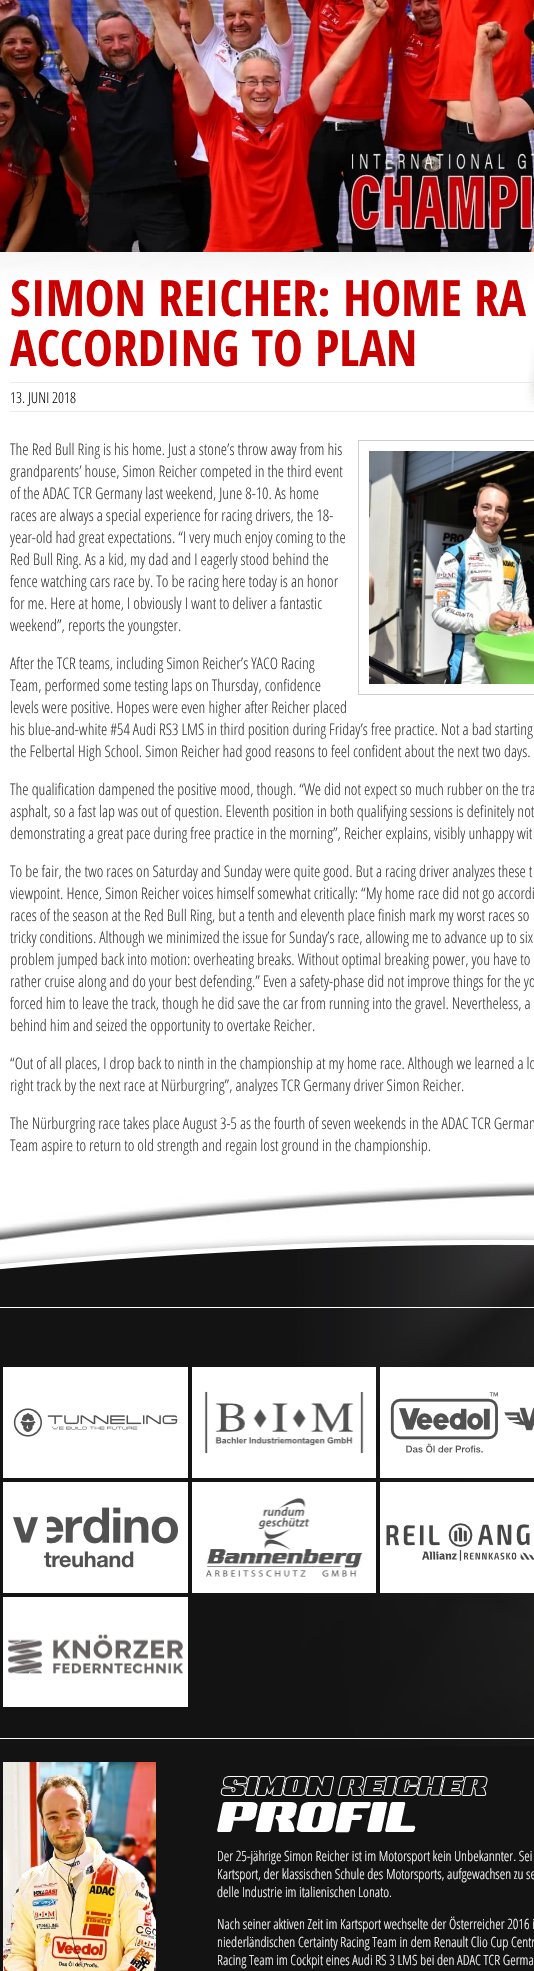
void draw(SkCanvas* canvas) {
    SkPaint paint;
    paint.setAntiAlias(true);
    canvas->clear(0xFFFFFFFF);
    canvas->drawImageRect(SkImages::DeferredFromEncodedData(SkData::MakeFromFileName("img1.png")), SkRect::MakeXYWH(0, 252, 534, 930), SkSamplingOptions());
    canvas->drawImageRect(SkImages::DeferredFromEncodedData(SkData::MakeFromFileName("img2.png")), SkRect::MakeXYWH(0, 0, 534, 252), SkSamplingOptions());
    SkFont font1(fontMgr->matchFamilyStyle("Open Sans Condensed", SkFontStyle::Bold()), 50);
    font1.setSubpixel(true);
    paint.setColor(0xFFC80000);
    canvas->drawString("SIMON REICHER: HOME RA", 10, 316, font1, paint);
    canvas->drawString("ACCORDING TO PLAN", 10, 366, font1, paint);
    paint.setColor(0xFFE9E9E9);
    canvas->drawRect(SkRect::MakeXYWH(10, 382, 524, 1), paint);
    canvas->drawRect(SkRect::MakeXYWH(10, 411, 524, 1), paint);
    SkFont font2(fontMgr->matchFamilyStyle("Open Sans Condensed", SkFontStyle(300, SkFontStyle::kNormal_Width, SkFontStyle::kUpright_Slant)), 15);
    font2.setSubpixel(true);
    paint.setColor(0xFF131313);
    canvas->drawString("13. JUNI 2018", 10, 403, font2, paint);
    SkFont font3(fontMgr->matchFamilyStyle("Open Sans Condensed", SkFontStyle(300, SkFontStyle::kNormal_Width, SkFontStyle::kUpright_Slant)), 16);
    font3.setSubpixel(true);
    paint.setColor(0xFF3E3E3E);
    canvas->drawString("The Red Bull Ring is his home. Just a stone’s throw away from his", 10, 455, font3, paint);
    canvas->drawString("grandparents’ house, Simon Reicher competed in the third event", 10, 477, font3, paint);
    canvas->drawString("of the ADAC TCR Germany last weekend, June 8-10. As home", 10, 499, font3, paint);
    canvas->drawString("races are always a special experience for racing drivers, the 18-", 10, 521, font3, paint);
    canvas->drawString("year-old had great expectations. “I very much enjoy coming to the", 10, 543, font3, paint);
    canvas->drawString("Red Bull Ring. As a kid, my dad and I eagerly stood behind the", 10, 565, font3, paint);
    canvas->drawString("fence watching cars race by. To be racing here today is an honor", 10, 587, font3, paint);
    canvas->drawString("for me. Here at home, I obviously I want to deliver a fantastic", 10, 609, font3, paint);
    canvas->drawString("weekend”, reports the youngster.", 10, 631, font3, paint);
    paint.setStyle(SkPaint::kStroke_Style);
    paint.setStrokeWidth(1);
    paint.setColor(0xFFCFCFCF);
    canvas->drawRect(SkRect::MakeXYWH(358.5f, 440.5f, 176, 254), paint);
    canvas->drawImageRect(SkImages::DeferredFromEncodedData(SkData::MakeFromFileName("img3.png")), SkRect::MakeXYWH(369, 451, 165, 233), SkSamplingOptions());
    paint.setStyle(SkPaint::kFill_Style);
    paint.setColor(0xFF3E3E3E);
    canvas->drawString("After the TCR teams, including Simon Reicher’s YACO Racing", 10, 669, font3, paint);
    canvas->drawString("Team, performed some testing laps on Thursday, confidence", 10, 691, font3, paint);
    canvas->drawString("levels were positive. Hopes were even higher after Reicher placed", 10, 713, font3, paint);
    canvas->drawString("his blue-and-white #54 Audi RS3 LMS in third position during Friday’s free practice. Not a bad starting", 10, 735, font3, paint);
    canvas->drawString("the Felbertal High School. Simon Reicher had good reasons to feel confident about the next two days.", 10, 757, font3, paint);
    canvas->drawString("The qualification dampened the positive mood, though. “We did not expect so much rubber on the tra", 10, 795, font3, paint);
    canvas->drawString("asphalt, so a fast lap was out of question. Eleventh position in both qualifying sessions is definitely not", 10, 817, font3, paint);
    canvas->drawString("demonstrating a great pace during free practice in the morning”, Reicher explains, visibly unhappy wit", 10, 839, font3, paint);
    canvas->drawString("To be fair, the two races on Saturday and Sunday were quite good. But a racing driver analyzes these t", 10, 877, font3, paint);
    canvas->drawString("viewpoint. Hence, Simon Reicher voices himself somewhat critically: “My home race did not go accordi", 10, 899, font3, paint);
    canvas->drawString("races of the season at the Red Bull Ring, but a tenth and eleventh place finish mark my worst races so", 10, 921, font3, paint);
    canvas->drawString("tricky conditions. Although we minimized the issue for Sunday’s race, allowing me to advance up to six", 10, 943, font3, paint);
    canvas->drawString("problem jumped back into motion: overheating breaks. Without optimal breaking power, you have to", 10, 965, font3, paint);
    canvas->drawString("rather cruise along and do your best defending.” Even a safety-phase did not improve things for the yo", 10, 987, font3, paint);
    canvas->drawString("forced him to leave the track, though he did save the car from running into the gravel. Nevertheless, a", 10, 1009, font3, paint);
    canvas->drawString("behind him and seized the opportunity to overtake Reicher.", 10, 1031, font3, paint);
    canvas->drawString("“Out of all places, I drop back to ninth in the championship at my home race. Although we learned a lo", 10, 1069, font3, paint);
    canvas->drawString("right track by the next race at Nürburgring”, analyzes TCR Germany driver Simon Reicher.", 10, 1091, font3, paint);
    canvas->drawString("The Nürburgring race takes place August 3-5 as the fourth of seven weekends in the ADAC TCR German", 10, 1129, font3, paint);
    canvas->drawString("Team aspire to return to old strength and regain lost ground in the championship.", 10, 1151, font3, paint);
    paint.setColor(0xFF131313);
    canvas->drawRect(SkRect::MakeXYWH(0, 1746, 534, 225), paint);
    canvas->drawImageRect(SkImages::DeferredFromEncodedData(SkData::MakeFromFileName("img4.png")), SkRect::MakeXYWH(0, 1182, 534, 564), SkSamplingOptions());
    paint.setColor(0xFFFFFFFF);
    canvas->drawRect(SkRect::MakeXYWH(0, 1307, 534, 1), paint);
    canvas->drawRect(SkRect::MakeXYWH(0, 1738, 534, 1), paint);
    canvas->drawImageRect(SkImages::DeferredFromEncodedData(SkData::MakeFromFileName("img5.png")), SkRect::MakeXYWH(3, 1367, 185, 111), SkSamplingOptions());
    canvas->drawImageRect(SkImages::DeferredFromEncodedData(SkData::MakeFromFileName("img6.png")), SkRect::MakeXYWH(192, 1367, 184, 111), SkSamplingOptions());
    canvas->drawImageRect(SkImages::DeferredFromEncodedData(SkData::MakeFromFileName("img7.png")), SkRect::MakeXYWH(380, 1367, 154, 111), SkSamplingOptions());
    canvas->drawImageRect(SkImages::DeferredFromEncodedData(SkData::MakeFromFileName("img8.png")), SkRect::MakeXYWH(3, 1482, 185, 111), SkSamplingOptions());
    canvas->drawImageRect(SkImages::DeferredFromEncodedData(SkData::MakeFromFileName("img9.png")), SkRect::MakeXYWH(192, 1482, 184, 111), SkSamplingOptions());
    canvas->drawImageRect(SkImages::DeferredFromEncodedData(SkData::MakeFromFileName("img10.png")), SkRect::MakeXYWH(380, 1482, 154, 111), SkSamplingOptions());
    canvas->drawImageRect(SkImages::DeferredFromEncodedData(SkData::MakeFromFileName("img11.png")), SkRect::MakeXYWH(3, 1597, 185, 110), SkSamplingOptions());
    canvas->drawImageRect(SkImages::DeferredFromEncodedData(SkData::MakeFromFileName("img12.png")), SkRect::MakeXYWH(3, 1762, 153, 209), SkSamplingOptions());
    canvas->drawImageRect(SkImages::DeferredFromEncodedData(SkData::MakeFromFileName("img13.png")), SkRect::MakeXYWH(217, 1776, 271, 57), SkSamplingOptions());
    SkFont font4(fontMgr->matchFamilyStyle("Open Sans Condensed", SkFontStyle(300, SkFontStyle::kNormal_Width, SkFontStyle::kUpright_Slant)), 14);
    font4.setSubpixel(true);
    canvas->drawString("Der 25-jährige Simon Reicher ist im Motorsport kein Unbekannter. Sei", 217, 1861, font4, paint);
    canvas->drawString("Kartsport, der klassischen Schule des Motorsports, aufgewachsen zu se", 217, 1879, font4, paint);
    canvas->drawString("delle Industrie im italienischen Lonato.", 217, 1897, font4, paint);
    canvas->drawString("Nach seiner aktiven Zeit im Kartsport wechselte der Österreicher 2016 i", 217, 1929, font4, paint);
    canvas->drawString("niederländischen Certainty Racing Team in dem Renault Clio Cup Centr", 217, 1947, font4, paint);
    canvas->drawString("Racing Team im Cockpit eines Audi RS 3 LMS bei den ADAC TCR Germa", 217, 1965, font4, paint);
}
